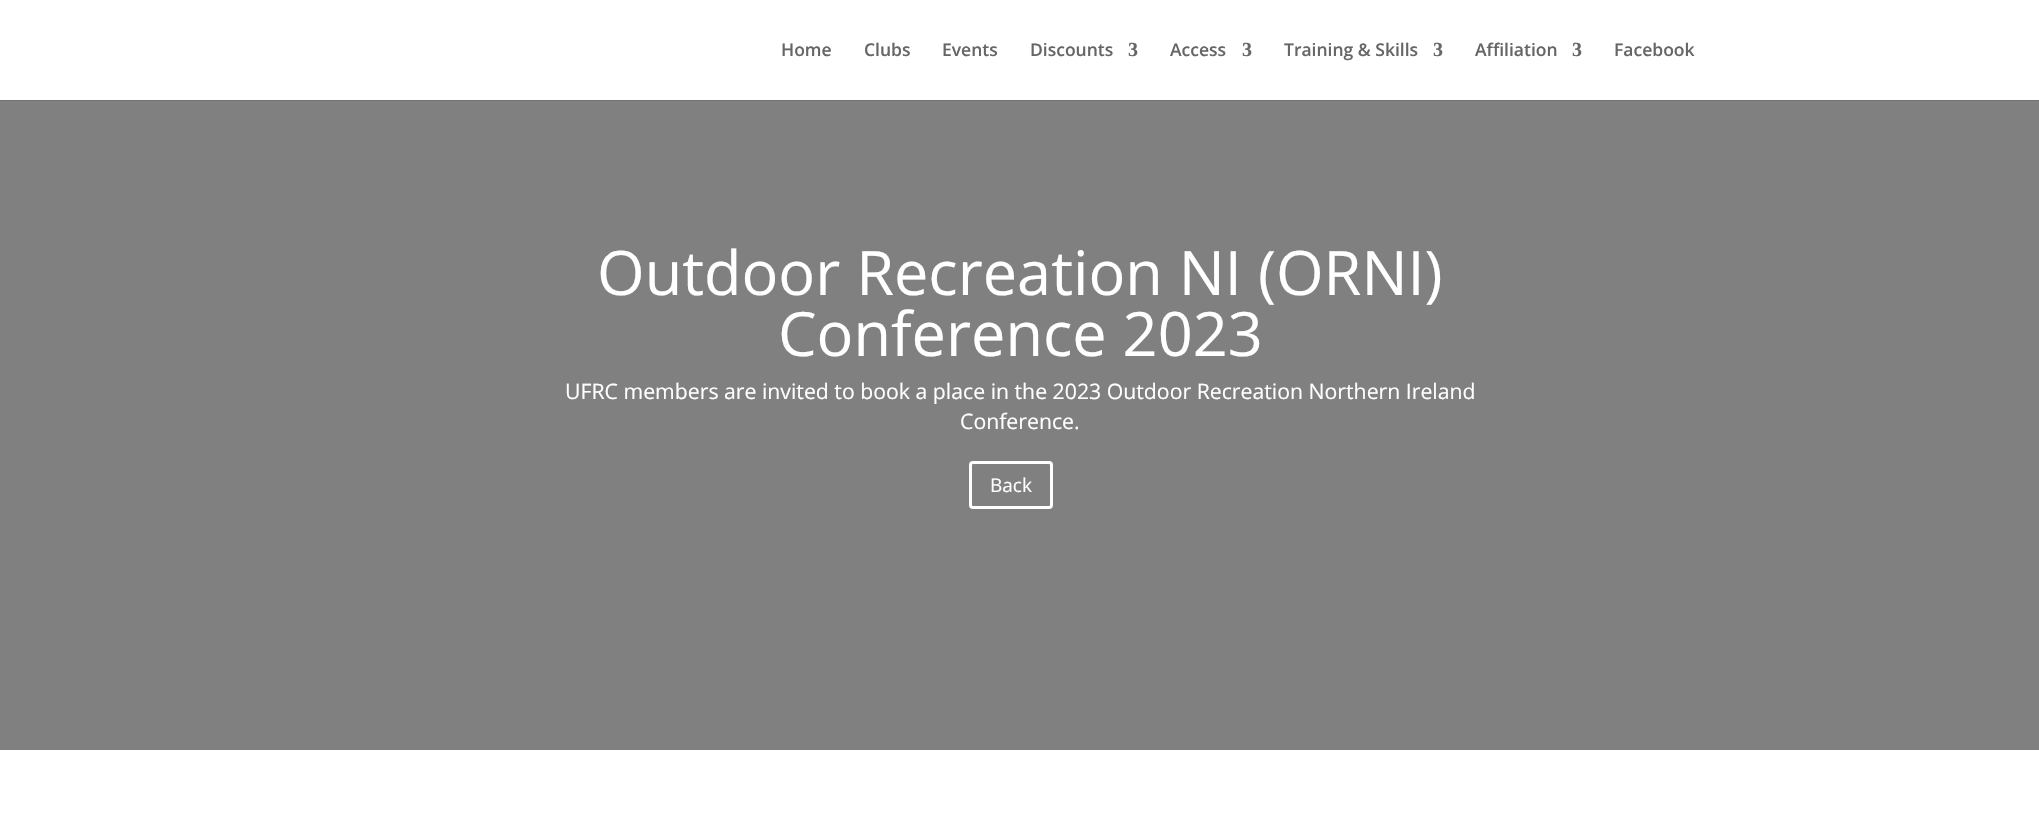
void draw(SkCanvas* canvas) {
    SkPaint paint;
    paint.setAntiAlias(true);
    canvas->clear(0xFFFFFFFF);
    paint.setColor(0xFF737373);
    canvas->drawRect(SkRect::MakeXYWH(0, 100, 2039, 1), paint);
    SkFont font1(fontMgr->matchFamilyStyle("Open Sans", SkFontStyle(600, SkFontStyle::kNormal_Width, SkFontStyle::kUpright_Slant)), 17.5f);
    font1.setSubpixel(true);
    paint.setColor(0xFF666666);
    canvas->drawString("Home", 781, 56, font1, paint);
    canvas->drawString("Clubs", 864, 56, font1, paint);
    canvas->drawString("Events", 942, 56, font1, paint);
    canvas->drawString("Discounts", 1030, 56, font1, paint);
    SkFont font2(fontMgr->matchFamilyStyle("Liberation Serif", SkFontStyle::Bold()), 20);
    font2.setSubpixel(true);
    canvas->drawString("3", 1128, 56, font2, paint);
    canvas->drawString("Access", 1170, 56, font1, paint);
    canvas->drawString("3", 1242, 56, font2, paint);
    canvas->drawString("Training & Skills", 1284, 56, font1, paint);
    canvas->drawString("3", 1433, 56, font2, paint);
    canvas->drawString("Affiliation", 1475, 56, font1, paint);
    canvas->drawString("3", 1572, 56, font2, paint);
    canvas->drawString("Facebook", 1614, 56, font1, paint);
    paint.setColor(0xFF808080);
    canvas->drawRect(SkRect::MakeXYWH(0, 101, 2039, 649), paint);
    SkFont font3(fontMgr->matchFamilyStyle("Open Sans", SkFontStyle::Normal()), 61.25f);
    font3.setSubpixel(true);
    paint.setColor(0xFFFFFFFF);
    canvas->drawString("Outdoor Recreation NI (ORNI)", 597, 295, font3, paint);
    canvas->drawString("Conference 2023", 778, 356, font3, paint);
    SkFont font4(fontMgr->matchFamilyStyle("Open Sans", SkFontStyle::Normal()), 21.25f);
    font4.setSubpixel(true);
    canvas->drawString("UFRC members are invited to book a place in the 2023 Outdoor Recreation Northern Ireland", 565, 399, font4, paint);
    canvas->drawString("Conference.", 960, 429, font4, paint);
    paint.setStyle(SkPaint::kStroke_Style);
    paint.setStrokeWidth(3);
    canvas->drawRoundRect(SkRect::MakeXYWH(970.5f, 462.5f, 81, 45), 2.5f, 2.5f, paint);
    SkFont font5(fontMgr->matchFamilyStyle("Open Sans", SkFontStyle::Normal()), 19);
    font5.setSubpixel(true);
    paint.setStyle(SkPaint::kFill_Style);
    canvas->drawString("Back", 990, 492, font5, paint);
}
